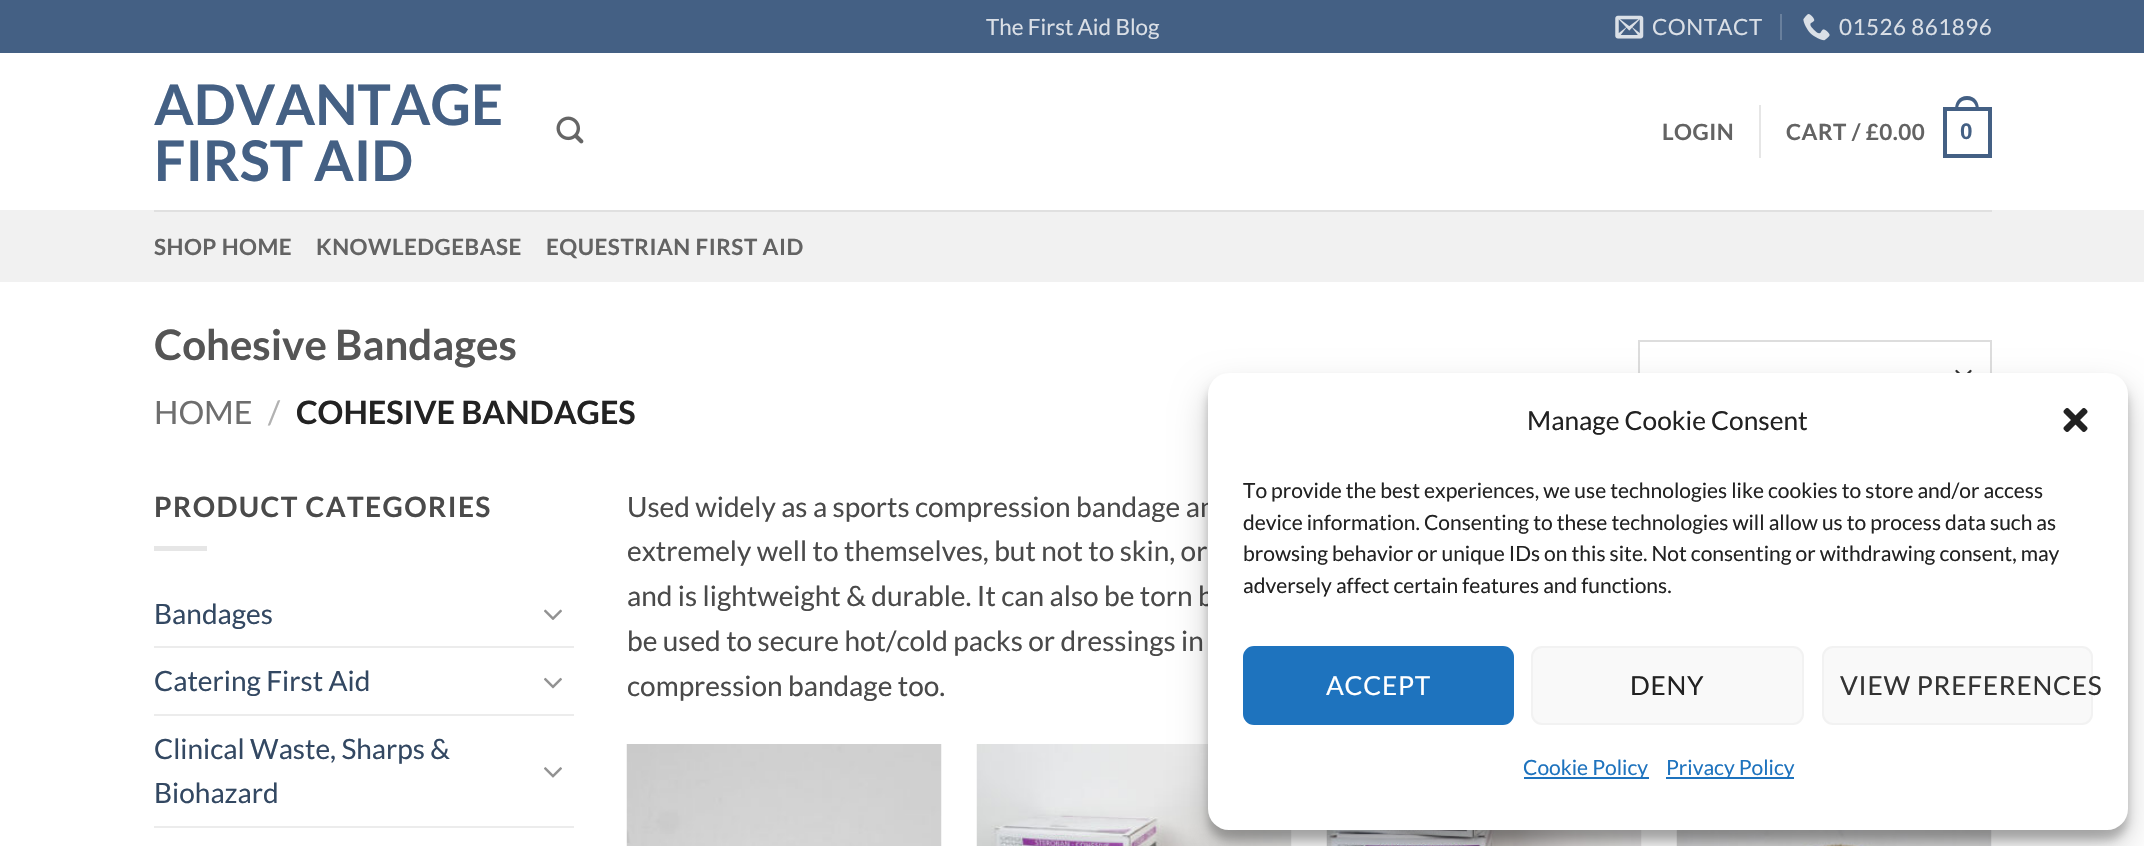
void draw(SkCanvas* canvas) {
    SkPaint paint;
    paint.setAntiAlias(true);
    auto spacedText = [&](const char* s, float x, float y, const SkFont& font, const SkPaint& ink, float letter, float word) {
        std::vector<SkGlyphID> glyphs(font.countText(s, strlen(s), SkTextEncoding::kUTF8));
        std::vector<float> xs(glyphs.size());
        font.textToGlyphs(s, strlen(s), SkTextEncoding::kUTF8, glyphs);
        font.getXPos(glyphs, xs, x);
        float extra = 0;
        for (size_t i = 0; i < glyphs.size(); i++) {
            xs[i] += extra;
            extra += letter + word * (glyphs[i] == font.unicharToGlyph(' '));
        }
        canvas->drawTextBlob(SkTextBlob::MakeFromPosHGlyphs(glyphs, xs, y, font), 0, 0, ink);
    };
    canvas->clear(0xFFFFFFFF);
    paint.setColor(0xFF446084);
    canvas->drawRect(SkRect::MakeXYWH(0, 0, 2144, 53), paint);
    SkFont font1(fontMgr->matchFamilyStyle("Lato", SkFontStyle::Normal()), 22.4f);
    font1.setSubpixel(true);
    paint.setColor(0xFFDADFE6);
    canvas->drawString("The First Aid Blog", 986, 35, font1, paint);
    canvas->drawImageRect(SkImages::DeferredFromEncodedData(SkData::MakeFromFileName("img1.png")), SkRect::MakeXYWH(1615, 15, 29, 24), SkSamplingOptions());
    spacedText("CONTACT", 1652, 35, font1, paint, 0.5f, 0);
    paint.setColor(0xFF69809D);
    canvas->drawRect(SkRect::MakeXYWH(1780, 14, 2, 26), paint);
    canvas->drawImageRect(SkImages::DeferredFromEncodedData(SkData::MakeFromFileName("img2.png")), SkRect::MakeXYWH(1803, 14, 27, 27), SkSamplingOptions());
    paint.setColor(0xFFDADFE6);
    spacedText("01526 861896", 1839, 35, font1, paint, 0.5f, 0);
    SkFont font2(fontMgr->matchFamilyStyle("Lato", SkFontStyle::Bold()), 56);
    font2.setSubpixel(true);
    paint.setColor(0xFF446084);
    canvas->drawString("ADVANTAGE", 154, 125, font2, paint);
    canvas->drawString("FIRST AID", 154, 181, font2, paint);
    canvas->drawImageRect(SkImages::DeferredFromEncodedData(SkData::MakeFromFileName("img3.png")), SkRect::MakeXYWH(556, 116, 28, 28), SkSamplingOptions());
    SkFont font3(fontMgr->matchFamilyStyle("Lato", SkFontStyle::Bold()), 22.4f);
    font3.setSubpixel(true);
    paint.setColor(0xFF636363);
    spacedText("LOGIN", 1662, 140, font3, paint, 0.5f, 0);
    paint.setColor(0xFFE6E6E6);
    canvas->drawRect(SkRect::MakeXYWH(1759, 105, 2, 53), paint);
    paint.setColor(0xFF636363);
    spacedText("CART / £0.00", 1786, 140, font3, paint, 0.5f, 0);
    paint.setStyle(SkPaint::kStroke_Style);
    paint.setStrokeWidth(4);
    paint.setColor(0xFF446084);
    canvas->drawRect(SkRect::MakeXYWH(1945, 109, 45, 47), paint);
    paint.setStyle(SkPaint::kFill_Style);
    canvas->drawPath(SkPathBuilder(SkPathFillType::kEvenOdd).moveTo(1967, 96).cubicTo(1975.5f, 96, 1979, 102.5f, 1979, 110).lineTo(1955, 110).cubicTo(1955, 102.5f, 1958.5f, 96, 1967, 96).close().moveTo(1967, 100).cubicTo(1973.5f, 100, 1976, 104.5f, 1976, 110).lineTo(1958, 110).cubicTo(1958, 104.5f, 1960.5f, 100, 1967, 100).close().detach(), paint);
    SkFont font4(fontMgr->matchFamilyStyle("Liberation Sans", SkFontStyle::Bold()), 22.4f);
    font4.setSubpixel(true);
    spacedText("0", 1960, 139, font4, paint, 0.5f, 0);
    paint.setColor(0xFFF1F1F1);
    canvas->drawRect(SkRect::MakeXYWH(0, 210, 2144, 72), paint);
    paint.setColor(0xFFE0E0E0);
    canvas->drawRect(SkRect::MakeXYWH(154, 210, 1838, 2), paint);
    paint.setColor(0xFF636363);
    spacedText("SHOP HOME", 154, 255, font3, paint, 0.5f, 0);
    spacedText("KNOWLEDGEBASE", 316, 255, font3, paint, 0.5f, 0);
    spacedText("EQUESTRIAN FIRST AID", 546, 255, font3, paint, 0.5f, 0);
    SkFont font5(fontMgr->matchFamilyStyle("Lato", SkFontStyle::Bold()), 42);
    font5.setSubpixel(true);
    paint.setColor(0xFF555555);
    canvas->drawString("Cohesive Bandages", 154, 360, font5, paint);
    SkFont font6(fontMgr->matchFamilyStyle("Lato", SkFontStyle::Normal()), 32.25f);
    font6.setSubpixel(true);
    paint.setColor(0xFF6E6E6E);
    canvas->drawString("HOME", 154, 424, font6, paint);
    paint.setColor(0xFFB2B2B2);
    canvas->drawString("/", 268, 424, font6, paint);
    SkFont font7(fontMgr->matchFamilyStyle("Lato", SkFontStyle::Bold()), 32.25f);
    font7.setSubpixel(true);
    paint.setColor(0xFF222222);
    canvas->drawString("COHESIVE BANDAGES", 296, 424, font7, paint);
    paint.setStyle(SkPaint::kStroke_Style);
    paint.setStrokeWidth(2.3f);
    paint.setStrokeCap(SkPaint::kRound_Cap);
    paint.setStrokeJoin(SkPaint::kRound_Join);
    paint.setColor(0xFF333333);
    canvas->drawPath(SkPathBuilder().moveTo(1956.5f, 371).lineTo(1963.5f, 378).lineTo(1970.5f, 371).detach(), paint);
    paint.setStrokeWidth(2);
    paint.setStrokeCap(SkPaint::kButt_Cap);
    paint.setStrokeJoin(SkPaint::kMiter_Join);
    paint.setColor(0xFFDDDDDD);
    canvas->drawRect(SkRect::MakeXYWH(1639, 341, 352, 66), paint);
    SkFont font8(fontMgr->matchFamilyStyle("Lato", SkFontStyle::Bold()), 28);
    font8.setSubpixel(true);
    paint.setStyle(SkPaint::kFill_Style);
    paint.setColor(0xFF4A4A4A);
    spacedText("PRODUCT CATEGORIES", 154, 517, font8, paint, 1.4f, 0);
    paint.setColor(0xFFE6E6E6);
    canvas->drawRect(SkRect::MakeXYWH(154, 546, 53, 5), paint);
    SkFont font9(fontMgr->matchFamilyStyle("Lato", SkFontStyle::Normal()), 28);
    font9.setSubpixel(true);
    paint.setColor(0xFF334862);
    canvas->drawString("Bandages", 154, 624, font9, paint);
    canvas->drawImageRect(SkImages::DeferredFromEncodedData(SkData::MakeFromFileName("img4.png")), SkRect::MakeXYWH(544, 609, 18, 11), SkSamplingOptions());
    paint.setColor(0xFFECECEC);
    canvas->drawRect(SkRect::MakeXYWH(154, 646, 420, 2), paint);
    paint.setColor(0xFF334862);
    canvas->drawString("Catering First Aid", 154, 691, font9, paint);
    canvas->drawImageRect(SkImages::DeferredFromEncodedData(SkData::MakeFromFileName("img5.png")), SkRect::MakeXYWH(544, 677, 18, 12), SkSamplingOptions());
    paint.setColor(0xFFECECEC);
    canvas->drawRect(SkRect::MakeXYWH(154, 714, 420, 2), paint);
    paint.setColor(0xFF334862);
    canvas->drawString("Clinical Waste, Sharps &", 154, 759, font9, paint);
    canvas->drawString("Biohazard", 154, 803, font9, paint);
    canvas->drawImageRect(SkImages::DeferredFromEncodedData(SkData::MakeFromFileName("img6.png")), SkRect::MakeXYWH(544, 767, 18, 11), SkSamplingOptions());
    paint.setColor(0xFFECECEC);
    canvas->drawRect(SkRect::MakeXYWH(154, 826, 420, 2), paint);
    paint.setColor(0xFF4A4A4A);
    canvas->drawString("Used widely as a sports compression bandage an", 627, 517, font9, paint);
    canvas->drawString("extremely well to themselves, but not to skin, or", 627, 561, font9, paint);
    canvas->drawString("and is lightweight & durable. It can also be torn b", 627, 606, font9, paint);
    canvas->drawString("be used to secure hot/cold packs or dressings in", 627, 651, font9, paint);
    canvas->drawString("compression bandage too.", 627, 696, font9, paint);
    canvas->drawImageRect(SkImages::DeferredFromEncodedData(SkData::MakeFromFileName("img7.png")), SkRect::MakeXYWH(626, 744, 316, 102), SkSamplingOptions());
    canvas->drawImageRect(SkImages::DeferredFromEncodedData(SkData::MakeFromFileName("img8.png")), SkRect::MakeXYWH(976, 744, 316, 102), SkSamplingOptions());
    canvas->drawImageRect(SkImages::DeferredFromEncodedData(SkData::MakeFromFileName("img9.png")), SkRect::MakeXYWH(1326, 830, 316, 16), SkSamplingOptions());
    canvas->drawImageRect(SkImages::DeferredFromEncodedData(SkData::MakeFromFileName("img10.png")), SkRect::MakeXYWH(1676, 830, 316, 16), SkSamplingOptions());
    paint.setColor(0x3B000000);
    paint.setMaskFilter(SkMaskFilter::MakeBlur(kNormal_SkBlurStyle, 5));
    canvas->drawRoundRect(SkRect::MakeXYWH(1208, 383, 920, 457), 21, 21, paint);
    paint.setMaskFilter(nullptr);
    paint.setColor(0x30000000);
    paint.setMaskFilter(SkMaskFilter::MakeBlur(kNormal_SkBlurStyle, 17.5f));
    canvas->drawRoundRect(SkRect::MakeXYWH(1208, 390, 920, 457), 21, 21, paint);
    paint.setMaskFilter(nullptr);
    paint.setColor(0xFFFFFFFF);
    canvas->drawRoundRect(SkRect::MakeXYWH(1208, 373, 920, 457), 21, 21, paint);
    SkFont font10(fontMgr->matchFamilyStyle("Lato", SkFontStyle::Normal()), 26.25f);
    font10.setSubpixel(true);
    paint.setColor(0xFF222222);
    canvas->drawString("Manage Cookie Consent", 1527, 430, font10, paint);
    canvas->drawImageRect(SkImages::DeferredFromEncodedData(SkData::MakeFromFileName("img11.png")), SkRect::MakeXYWH(2063, 408, 25, 24), SkSamplingOptions());
    SkFont font11(fontMgr->matchFamilyStyle("Lato", SkFontStyle::Normal()), 21);
    font11.setSubpixel(true);
    canvas->drawString("To provide the best experiences, we use technologies like cookies to store and/or access", 1243, 498, font11, paint);
    canvas->drawString("device information. Consenting to these technologies will allow us to process data such as", 1243, 530, font11, paint);
    canvas->drawString("browsing behavior or unique IDs on this site. Not consenting or withdrawing consent, may", 1243, 561, font11, paint);
    canvas->drawString("adversely affect certain features and functions.", 1243, 593, font11, paint);
    paint.setColor(0xFF1E73BE);
    canvas->drawRoundRect(SkRect::MakeXYWH(1244, 647, 269, 77), 10, 10, paint);
    paint.setStyle(SkPaint::kStroke_Style);
    canvas->drawRoundRect(SkRect::MakeXYWH(1244, 647, 269, 77), 10, 10, paint);
    paint.setStyle(SkPaint::kFill_Style);
    paint.setColor(0xFFFFFFFF);
    spacedText("ACCEPT", 1326, 695, font10, paint, 0.75f, 0);
    paint.setColor(0xFFF9F9F9);
    canvas->drawRoundRect(SkRect::MakeXYWH(1532, 647, 271, 77), 10, 10, paint);
    paint.setStyle(SkPaint::kStroke_Style);
    paint.setColor(0xFFF2F2F2);
    canvas->drawRoundRect(SkRect::MakeXYWH(1532, 647, 271, 77), 10, 10, paint);
    paint.setStyle(SkPaint::kFill_Style);
    paint.setColor(0xFF222222);
    spacedText("DENY", 1630, 695, font10, paint, 0.75f, 0);
    paint.setColor(0xFFF9F9F9);
    canvas->drawRoundRect(SkRect::MakeXYWH(1823, 647, 269, 77), 10, 10, paint);
    paint.setStyle(SkPaint::kStroke_Style);
    paint.setColor(0xFFF2F2F2);
    canvas->drawRoundRect(SkRect::MakeXYWH(1823, 647, 269, 77), 10, 10, paint);
    paint.setStyle(SkPaint::kFill_Style);
    paint.setColor(0xFF333333);
    spacedText("VIEW PREFERENCES", 1840, 695, font10, paint, 0.75f, 0);
    paint.setColor(0xFF1E73BE);
    canvas->drawRect(SkRect::MakeXYWH(1524, 777, 125, 2), paint);
    canvas->drawString("Cookie Policy", 1523, 775, font11, paint);
    canvas->drawRect(SkRect::MakeXYWH(1666, 777, 128, 2), paint);
    canvas->drawString("Privacy Policy", 1666, 775, font11, paint);
}
